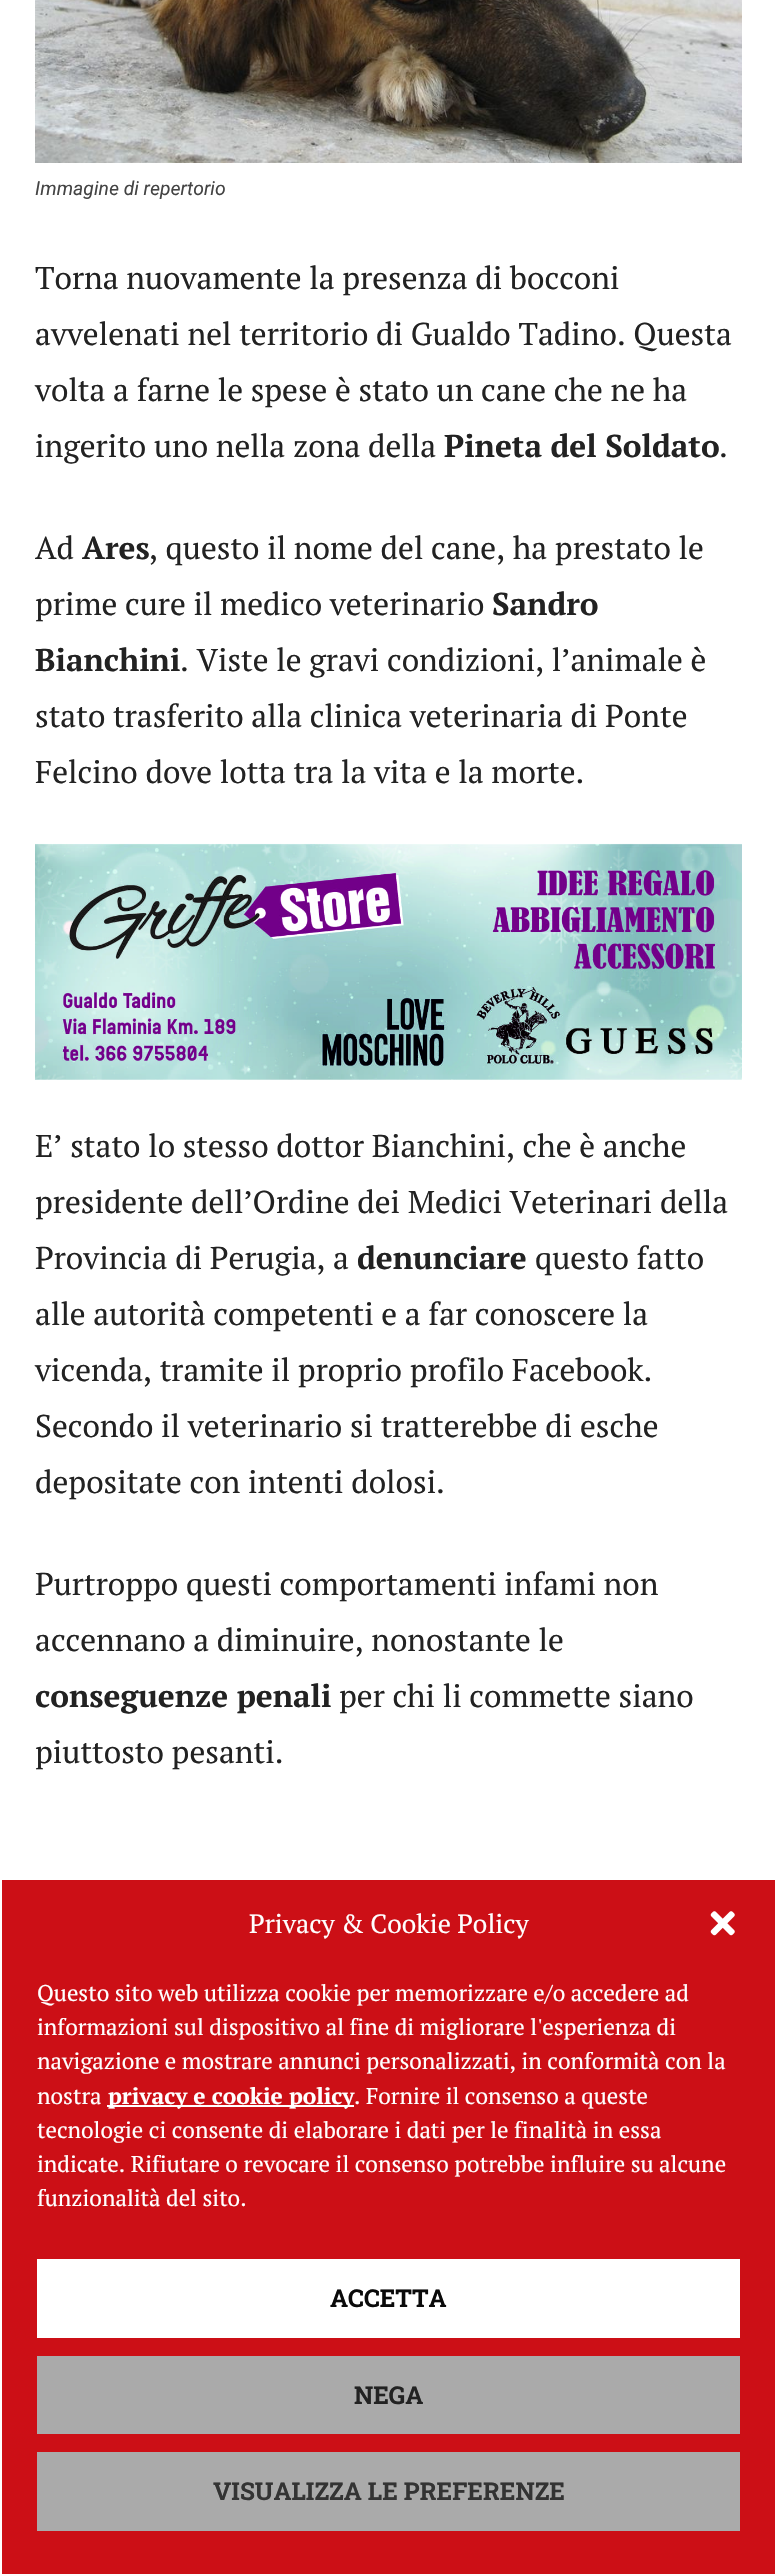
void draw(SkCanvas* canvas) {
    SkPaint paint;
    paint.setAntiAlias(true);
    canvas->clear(0xFFFFFFFF);
    canvas->drawImageRect(SkImages::DeferredFromEncodedData(SkData::MakeFromFileName("img1.png")), SkRect::MakeXYWH(35, 0, 707, 163), SkSamplingOptions());
    SkFont font1(fontMgr->matchFamilyStyle("Roboto", SkFontStyle::Italic()), 19.25f);
    font1.setSubpixel(true);
    paint.setColor(0xFF444444);
    canvas->drawString("Immagine di repertorio", 35, 195, font1, paint);
    SkFont font2(fontMgr->matchFamilyStyle("PT Serif", SkFontStyle::Normal()), 31.5f);
    font2.setSubpixel(true);
    paint.setColor(0xFF222222);
    canvas->drawString("Torna nuovamente la presenza di bocconi", 35, 289, font2, paint);
    canvas->drawString("avvelenati nel territorio di Gualdo Tadino. Questa", 35, 345, font2, paint);
    canvas->drawString("volta a farne le spese è stato un cane che ne ha", 35, 401, font2, paint);
    canvas->drawString("ingerito uno nella zona della", 35, 457, font2, paint);
    SkFont font3(fontMgr->matchFamilyStyle("PT Serif", SkFontStyle::Bold()), 31.5f);
    font3.setSubpixel(true);
    canvas->drawString("Pineta del Soldato", 444, 457, font3, paint);
    canvas->drawString(".", 719, 457, font2, paint);
    canvas->drawString("Ad", 35, 559, font2, paint);
    canvas->drawString("Ares", 82, 559, font3, paint);
    canvas->drawString(", questo il nome del cane, ha prestato le", 149, 559, font2, paint);
    canvas->drawString("prime cure il medico veterinario", 35, 615, font2, paint);
    canvas->drawString("Sandro", 492, 615, font3, paint);
    canvas->drawString("Bianchini", 35, 671, font3, paint);
    canvas->drawString(". Viste le gravi condizioni, l’animale è", 180, 671, font2, paint);
    canvas->drawString("stato trasferito alla clinica veterinaria di Ponte", 35, 727, font2, paint);
    canvas->drawString("Felcino dove lotta tra la vita e la morte.", 35, 783, font2, paint);
    canvas->drawImageRect(SkImages::DeferredFromEncodedData(SkData::MakeFromFileName("img2.png")), SkRect::MakeXYWH(35, 843, 707, 237), SkSamplingOptions());
    canvas->drawString("E’ stato lo stesso dottor Bianchini, che è anche", 35, 1157, font2, paint);
    canvas->drawString("presidente dell’Ordine dei Medici Veterinari della", 35, 1213, font2, paint);
    canvas->drawString("Provincia di Perugia, a", 35, 1269, font2, paint);
    canvas->drawString("denunciare", 357, 1269, font3, paint);
    canvas->drawString("questo fatto", 535, 1269, font2, paint);
    canvas->drawString("alle autorità competenti e a far conoscere la", 35, 1325, font2, paint);
    canvas->drawString("vicenda, tramite il proprio profilo Facebook.", 35, 1381, font2, paint);
    canvas->drawString("Secondo il veterinario si tratterebbe di esche", 35, 1437, font2, paint);
    canvas->drawString("depositate con intenti dolosi.", 35, 1493, font2, paint);
    canvas->drawString("Purtroppo questi comportamenti infami non", 35, 1595, font2, paint);
    canvas->drawString("accennano a diminuire, nonostante le", 35, 1651, font2, paint);
    canvas->drawString("conseguenze penali", 35, 1707, font3, paint);
    canvas->drawString("per chi li commette siano", 339, 1707, font2, paint);
    canvas->drawString("piuttosto pesanti.", 35, 1763, font2, paint);
    paint.setColor(0xFFCC0F16);
    canvas->drawRect(SkRect::MakeXYWH(2, 1880, 773, 694), paint);
    SkFont font4(fontMgr->matchFamilyStyle("PT Serif", SkFontStyle::Normal()), 26.25f);
    font4.setSubpixel(true);
    paint.setColor(0xFFFFFFFF);
    canvas->drawString("Privacy & Cookie Policy", 249, 1933, font4, paint);
    canvas->drawImageRect(SkImages::DeferredFromEncodedData(SkData::MakeFromFileName("img3.png")), SkRect::MakeXYWH(710, 1911, 25, 25), SkSamplingOptions());
    SkFont font5(fontMgr->matchFamilyStyle("PT Serif", SkFontStyle::Normal()), 22.75f);
    font5.setSubpixel(true);
    canvas->drawString("Questo sito web utilizza cookie per memorizzare e/o accedere ad", 37, 2001, font5, paint);
    canvas->drawString("informazioni sul dispositivo al fine di migliorare l'esperienza di", 37, 2035, font5, paint);
    canvas->drawString("navigazione e mostrare annunci personalizzati, in conformità con la", 37, 2069, font5, paint);
    canvas->drawString("nostra", 37, 2104, font5, paint);
    canvas->drawRect(SkRect::MakeXYWH(107, 2105, 247, 2), paint);
    SkFont font6(fontMgr->matchFamilyStyle("PT Serif", SkFontStyle::Bold()), 22.75f);
    font6.setSubpixel(true);
    canvas->drawString("privacy e cookie policy", 108, 2104, font6, paint);
    canvas->drawString(". Fornire il consenso a queste", 354, 2104, font5, paint);
    canvas->drawString("tecnologie ci consente di elaborare i dati per le finalità in essa", 37, 2138, font5, paint);
    canvas->drawString("indicate. Rifiutare o revocare il consenso potrebbe influire su alcune", 37, 2172, font5, paint);
    canvas->drawString("funzionalità del sito.", 37, 2206, font5, paint);
    canvas->drawRect(SkRect::MakeXYWH(37, 2259, 703, 79), paint);
    SkFont font7(fontMgr->matchFamilyStyle("Roboto Slab", SkFontStyle::Bold()), 24.5f);
    font7.setSubpixel(true);
    paint.setColor(0xFF0A0A0A);
    canvas->drawString("ACCETTA", 330, 2307, font7, paint);
    paint.setColor(0xFFAAAAAA);
    canvas->drawRect(SkRect::MakeXYWH(37, 2356, 703, 78), paint);
    paint.setColor(0xFF222222);
    canvas->drawString("NEGA", 354, 2404, font7, paint);
    paint.setColor(0xFFAAAAAA);
    canvas->drawRect(SkRect::MakeXYWH(37, 2452, 703, 79), paint);
    paint.setColor(0xFF333333);
    canvas->drawString("VISUALIZZA LE PREFERENZE", 213, 2500, font7, paint);
}
